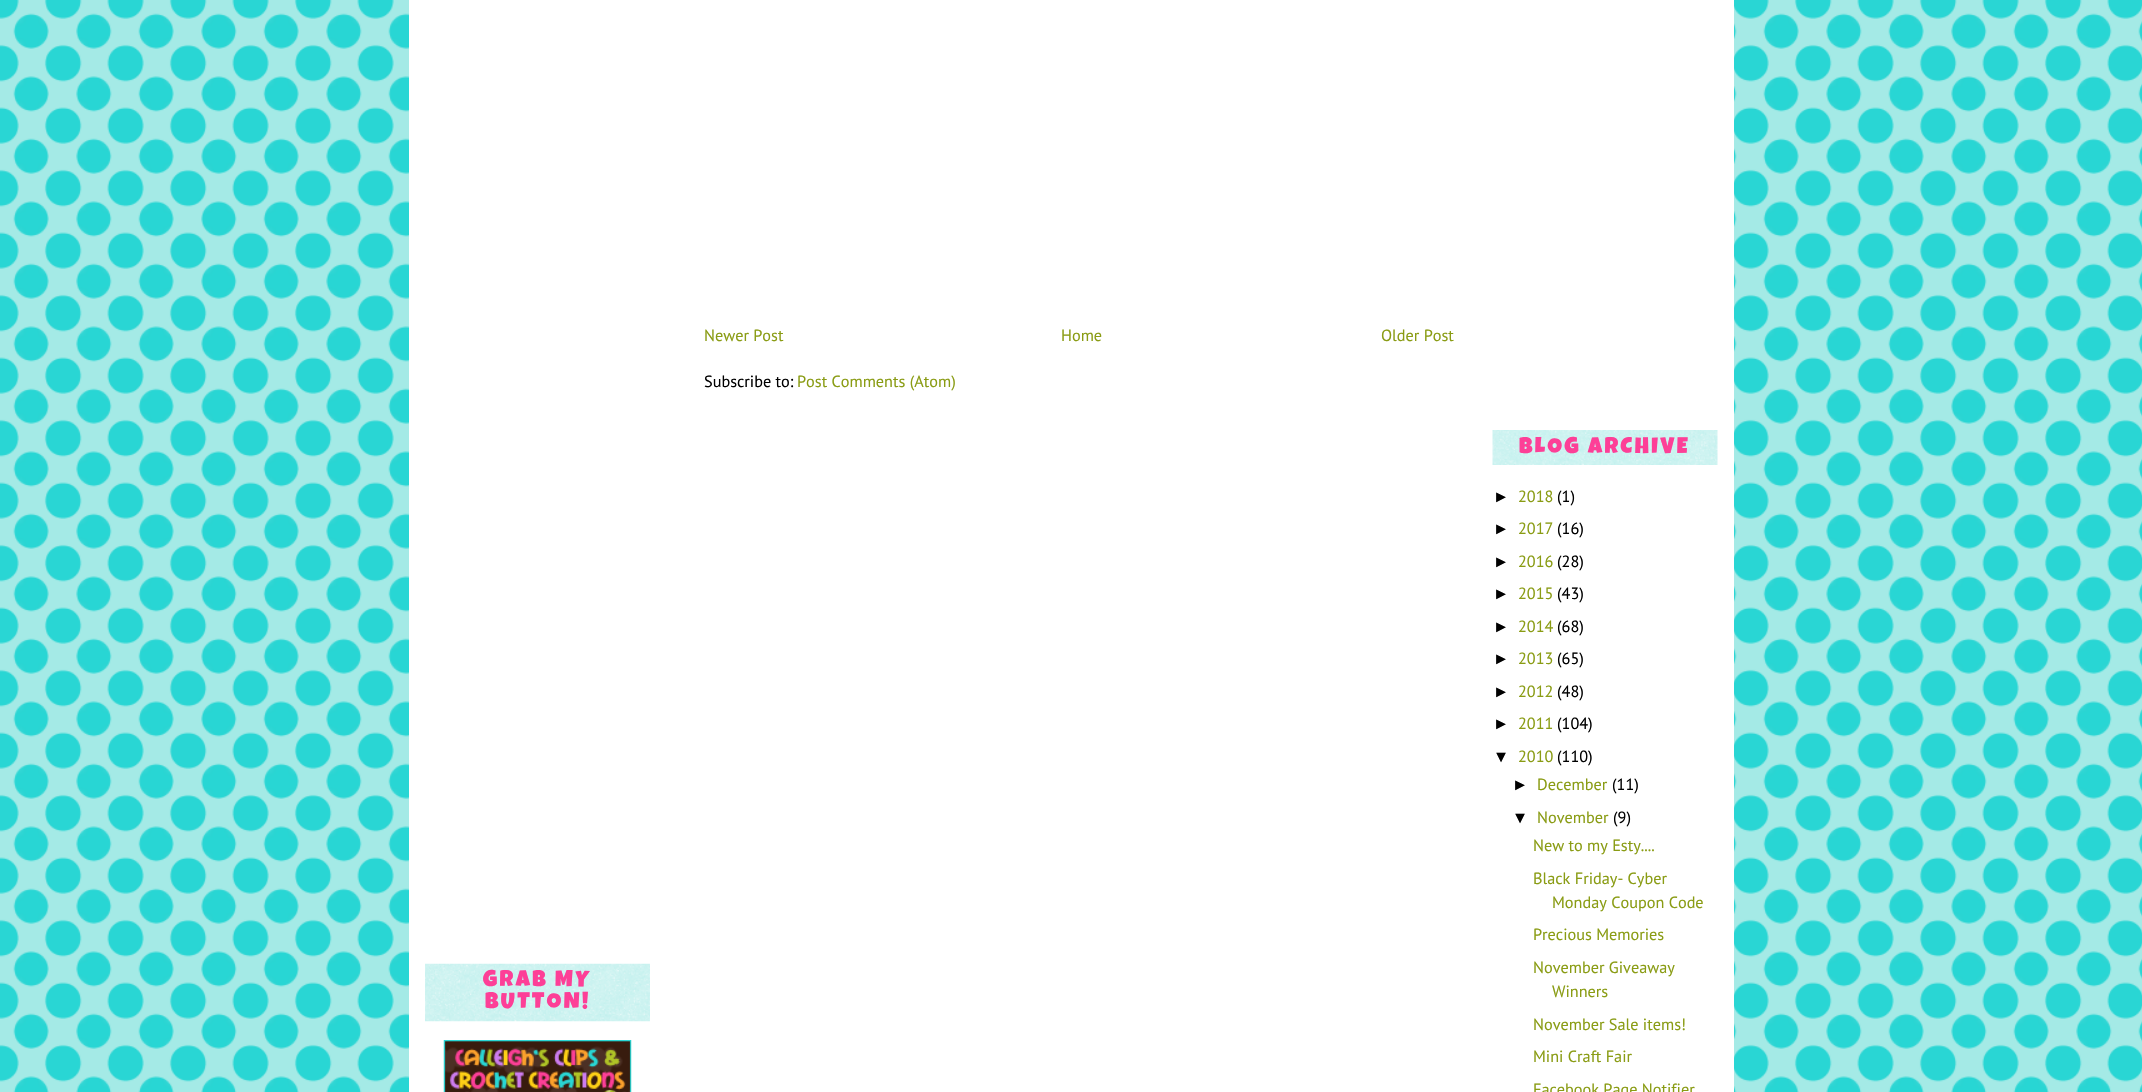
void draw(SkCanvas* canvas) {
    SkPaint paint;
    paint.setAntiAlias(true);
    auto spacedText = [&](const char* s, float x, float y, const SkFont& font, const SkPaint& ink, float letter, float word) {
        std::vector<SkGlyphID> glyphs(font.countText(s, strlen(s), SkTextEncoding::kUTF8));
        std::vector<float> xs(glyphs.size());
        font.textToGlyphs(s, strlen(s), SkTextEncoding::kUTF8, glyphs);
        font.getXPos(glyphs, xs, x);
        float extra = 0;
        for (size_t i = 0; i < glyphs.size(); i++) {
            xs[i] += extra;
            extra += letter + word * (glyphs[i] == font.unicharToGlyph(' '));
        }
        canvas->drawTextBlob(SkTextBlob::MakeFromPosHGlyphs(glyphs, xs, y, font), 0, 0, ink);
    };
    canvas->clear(0xFFFFFFFF);
    canvas->drawImageRect(SkImages::DeferredFromEncodedData(SkData::MakeFromFileName("img1.png")), SkRect::MakeXYWH(0, 0, 2142, 1092), SkSamplingOptions());
    paint.setColor(0xFFFFFFFF);
    canvas->drawRect(SkRect::MakeXYWH(409, 0, 1325, 1092), paint);
    SkFont font1(fontMgr->matchFamilyStyle("PT Sans", SkFontStyle::Normal()), 16.25f);
    font1.setSubpixel(true);
    paint.setColor(0xFF8A9C14);
    canvas->drawString("Newer Post", 704, 341, font1, paint);
    canvas->drawString("Home", 1061, 341, font1, paint);
    canvas->drawString("Older Post", 1381, 341, font1, paint);
    paint.setColor(0xFF000000);
    canvas->drawString("Subscribe to:", 704, 387, font1, paint);
    paint.setColor(0xFF8A9C14);
    canvas->drawString("Post Comments (Atom)", 797, 387, font1, paint);
    canvas->drawImageRect(SkImages::DeferredFromEncodedData(SkData::MakeFromFileName("img2.png")), SkRect::MakeXYWH(425, 963, 225, 59), SkSamplingOptions());
    SkFont font2(fontMgr->matchFamilyStyle("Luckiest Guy", SkFontStyle::Normal()), 22.5f);
    font2.setSubpixel(true);
    paint.setColor(0xFFFD3F97);
    spacedText("GRAB MY", 483, 986, font2, paint, 2.5f, 0);
    spacedText("BUTTON!", 485, 1008, font2, paint, 2.5f, 0);
    canvas->drawImageRect(SkImages::DeferredFromEncodedData(SkData::MakeFromFileName("img3.png")), SkRect::MakeXYWH(443, 1040, 189, 52), SkSamplingOptions());
    canvas->drawImageRect(SkImages::DeferredFromEncodedData(SkData::MakeFromFileName("img4.png")), SkRect::MakeXYWH(1492, 430, 226, 35), SkSamplingOptions());
    spacedText("BLOG ARCHIVE", 1519, 453, font2, paint, 2.5f, 0);
    SkFont font3(fontMgr->matchFamilyStyle("Liberation Sans", SkFontStyle::Normal()), 16.25f);
    font3.setSubpixel(true);
    paint.setColor(0xFF000000);
    canvas->drawString("►", 1493, 502, font3, paint);
    paint.setColor(0xFF8A9C14);
    canvas->drawString("2018", 1518, 502, font1, paint);
    paint.setColor(0xFF000000);
    canvas->drawString("(1)", 1557, 502, font1, paint);
    canvas->drawString("►", 1493, 534, font3, paint);
    paint.setColor(0xFF8A9C14);
    canvas->drawString("2017", 1518, 534, font1, paint);
    paint.setColor(0xFF000000);
    canvas->drawString("(16)", 1557, 534, font1, paint);
    canvas->drawString("►", 1493, 567, font3, paint);
    paint.setColor(0xFF8A9C14);
    canvas->drawString("2016", 1518, 567, font1, paint);
    paint.setColor(0xFF000000);
    canvas->drawString("(28)", 1557, 567, font1, paint);
    canvas->drawString("►", 1493, 599, font3, paint);
    paint.setColor(0xFF8A9C14);
    canvas->drawString("2015", 1518, 599, font1, paint);
    paint.setColor(0xFF000000);
    canvas->drawString("(43)", 1557, 599, font1, paint);
    canvas->drawString("►", 1493, 632, font3, paint);
    paint.setColor(0xFF8A9C14);
    canvas->drawString("2014", 1518, 632, font1, paint);
    paint.setColor(0xFF000000);
    canvas->drawString("(68)", 1557, 632, font1, paint);
    canvas->drawString("►", 1493, 664, font3, paint);
    paint.setColor(0xFF8A9C14);
    canvas->drawString("2013", 1518, 664, font1, paint);
    paint.setColor(0xFF000000);
    canvas->drawString("(65)", 1557, 664, font1, paint);
    canvas->drawString("►", 1493, 697, font3, paint);
    paint.setColor(0xFF8A9C14);
    canvas->drawString("2012", 1518, 697, font1, paint);
    paint.setColor(0xFF000000);
    canvas->drawString("(48)", 1557, 697, font1, paint);
    canvas->drawString("►", 1493, 729, font3, paint);
    paint.setColor(0xFF8A9C14);
    canvas->drawString("2011", 1518, 729, font1, paint);
    paint.setColor(0xFF000000);
    canvas->drawString("(104)", 1557, 729, font1, paint);
    canvas->drawString("▼", 1493, 762, font3, paint);
    paint.setColor(0xFF8A9C14);
    canvas->drawString("2010", 1518, 762, font1, paint);
    paint.setColor(0xFF000000);
    canvas->drawString("(110)", 1557, 762, font1, paint);
    canvas->drawString("►", 1512, 790, font3, paint);
    paint.setColor(0xFF8A9C14);
    canvas->drawString("December", 1537, 790, font1, paint);
    paint.setColor(0xFF000000);
    canvas->drawString("(11)", 1612, 790, font1, paint);
    canvas->drawString("▼", 1512, 823, font3, paint);
    paint.setColor(0xFF8A9C14);
    canvas->drawString("November", 1537, 823, font1, paint);
    paint.setColor(0xFF000000);
    canvas->drawString("(9)", 1613, 823, font1, paint);
    paint.setColor(0xFF8A9C14);
    canvas->drawString("New to my Esty....", 1533, 851, font1, paint);
    canvas->drawString("Black Friday- Cyber", 1533, 884, font1, paint);
    canvas->drawString("Monday Coupon Code", 1552, 908, font1, paint);
    canvas->drawString("Precious Memories", 1533, 940, font1, paint);
    canvas->drawString("November Giveaway", 1533, 973, font1, paint);
    canvas->drawString("Winners", 1552, 997, font1, paint);
    canvas->drawString("November Sale items!", 1533, 1030, font1, paint);
    canvas->drawString("Mini Craft Fair", 1533, 1062, font1, paint);
    canvas->drawString("Facebook Page Notifier", 1533, 1095, font1, paint);
}
